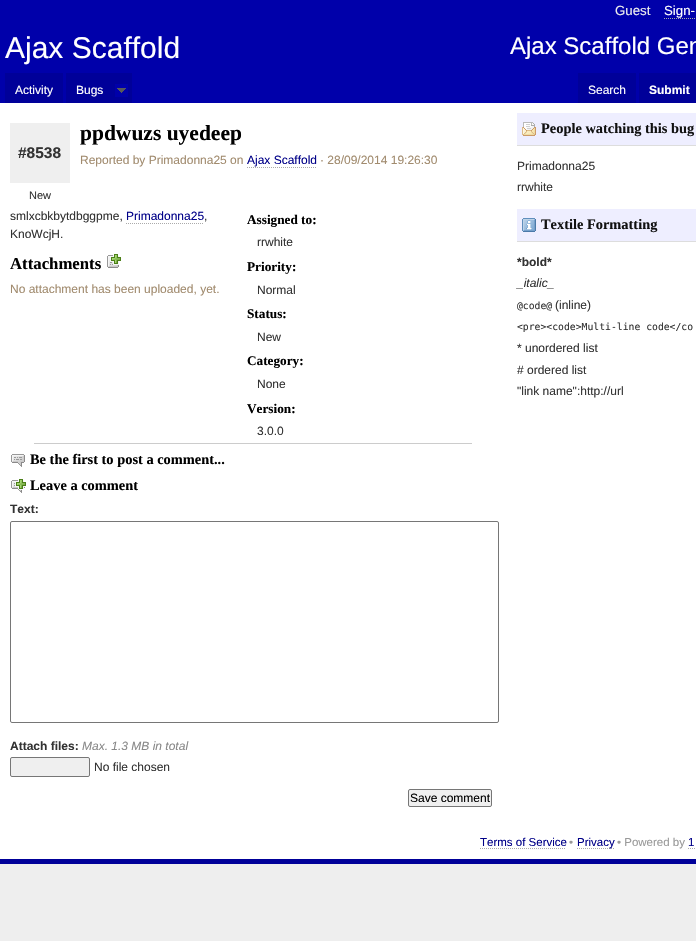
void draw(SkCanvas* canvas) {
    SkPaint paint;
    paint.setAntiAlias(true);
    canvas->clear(0xFFEEEEEE);
    paint.setColor(0xFF0000AA);
    canvas->drawRect(SkRect::MakeXYWH(0, 0, 696, 103), paint);
    SkFont font1(fontMgr->matchFamilyStyle("Liberation Sans", SkFontStyle::Normal()), 13.25f);
    font1.setSubpixel(true);
    paint.setColor(0xFFEEEEEE);
    canvas->drawString("Guest", 615, 15, font1, paint);
    paint.setColor(0xFFFFFFFF);
    canvas->drawString("Sign-", 664, 15, font1, paint);
    paint.setStyle(SkPaint::kStroke_Style);
    paint.setStrokeWidth(1);
    paint.setColor(0xFFAAAAAA);
    paint.setPathEffect(SkDashPathEffect::Make({{1, 1}}, 0));
    canvas->drawPath(SkPathBuilder().moveTo(664, 18.5f).lineTo(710, 18.5f).detach(), paint);
    paint.setPathEffect(nullptr);
    SkFont font2(fontMgr->matchFamilyStyle("Liberation Sans", SkFontStyle::Normal()), 30);
    font2.setSubpixel(true);
    paint.setStyle(SkPaint::kFill_Style);
    paint.setColor(0xFFFFFFFF);
    canvas->drawString("Ajax Scaffold", 5, 58, font2, paint);
    SkFont font3(fontMgr->matchFamilyStyle("Liberation Sans", SkFontStyle::Normal()), 24);
    font3.setSubpixel(true);
    canvas->drawString("Ajax Scaffold Gen", 510, 54, font3, paint);
    paint.setColor(0xFF000099);
    canvas->drawRect(SkRect::MakeXYWH(5, 73, 58, 30), paint);
    SkFont font4(fontMgr->matchFamilyStyle("Liberation Sans", SkFontStyle::Normal()), 12);
    font4.setSubpixel(true);
    paint.setColor(0xFFFFFFFF);
    canvas->drawString("Activity", 15, 94, font4, paint);
    paint.setColor(0xFF000099);
    canvas->drawRect(SkRect::MakeXYWH(66, 73, 66, 30), paint);
    paint.setColor(0xFFFFFFFF);
    canvas->drawString("Bugs", 76, 94, font4, paint);
    paint.setColor(0xFF0000AA);
    canvas->drawRect(SkRect::MakeXYWH(115, 84, 13, 13), paint);
    canvas->drawImageRect(SkImages::DeferredFromEncodedData(SkData::MakeFromFileName("img1.png")), SkRect::MakeXYWH(117, 88, 9, 5), SkSamplingOptions());
    paint.setColor(0xFF000099);
    canvas->drawRect(SkRect::MakeXYWH(578, 73, 58, 30), paint);
    paint.setColor(0xFFFFFFFF);
    canvas->drawString("Search", 588, 94, font4, paint);
    paint.setColor(0xFF000099);
    canvas->drawRect(SkRect::MakeXYWH(639, 73, 57, 30), paint);
    SkFont font5(fontMgr->matchFamilyStyle("Liberation Sans", SkFontStyle::Bold()), 12);
    font5.setSubpixel(true);
    paint.setColor(0xFFFFFFFF);
    canvas->drawString("Submit", 649, 94, font5, paint);
    canvas->drawRect(SkRect::MakeXYWH(0, 103, 696, 756), paint);
    paint.setColor(0xFF000099);
    canvas->drawRect(SkRect::MakeXYWH(0, 859, 696, 5), paint);
    paint.setColor(0xFFEFEFEF);
    canvas->drawRect(SkRect::MakeXYWH(10, 123, 60, 60), paint);
    SkFont font6(fontMgr->matchFamilyStyle("Liberation Sans", SkFontStyle::Bold()), 15.5f);
    font6.setSubpixel(true);
    paint.setColor(0xFF333333);
    canvas->drawString("#8538", 18, 158, font6, paint);
    SkFont font7(fontMgr->matchFamilyStyle("Liberation Sans", SkFontStyle::Normal()), 11);
    font7.setSubpixel(true);
    canvas->drawString("New", 29, 199, font7, paint);
    SkFont font8(fontMgr->matchFamilyStyle("Liberation Serif", SkFontStyle::Bold()), 21.5f);
    font8.setSubpixel(true);
    paint.setColor(0xFF000000);
    canvas->drawString("ppdwuzs uyedeep", 80, 140, font8, paint);
    paint.setColor(0xFFA18B6E);
    canvas->drawString("Reported by Primadonna25 on", 80, 164, font4, paint);
    paint.setColor(0xFF000088);
    canvas->drawString("Ajax Scaffold", 247, 164, font4, paint);
    paint.setStyle(SkPaint::kStroke_Style);
    paint.setColor(0xFFAAAAAA);
    paint.setPathEffect(SkDashPathEffect::Make({{1, 1}}, 0));
    canvas->drawPath(SkPathBuilder().moveTo(247, 167.5f).lineTo(317, 167.5f).detach(), paint);
    paint.setPathEffect(nullptr);
    paint.setStyle(SkPaint::kFill_Style);
    paint.setColor(0xFFA18B6E);
    canvas->drawString("· 28/09/2014 19:26:30", 320, 164, font4, paint);
    paint.setColor(0xFF333333);
    canvas->drawString("smlxcbkbytdbggpme,", 10, 220, font4, paint);
    paint.setColor(0xFF000088);
    canvas->drawString("Primadonna25", 126, 220, font4, paint);
    paint.setStyle(SkPaint::kStroke_Style);
    paint.setColor(0xFFAAAAAA);
    paint.setPathEffect(SkDashPathEffect::Make({{1, 1}}, 0));
    canvas->drawPath(SkPathBuilder().moveTo(126, 223.5f).lineTo(204, 223.5f).detach(), paint);
    paint.setPathEffect(nullptr);
    paint.setStyle(SkPaint::kFill_Style);
    paint.setColor(0xFF333333);
    canvas->drawString(",", 204, 220, font4, paint);
    canvas->drawString("KnoWcjH.", 10, 238, font4, paint);
    SkFont font9(fontMgr->matchFamilyStyle("Liberation Serif", SkFontStyle::Bold()), 13.25f);
    font9.setSubpixel(true);
    paint.setColor(0xFF000000);
    canvas->drawString("Assigned to:", 247, 224, font9, paint);
    paint.setColor(0xFF333333);
    canvas->drawString("rrwhite", 257, 246, font4, paint);
    paint.setColor(0xFF000000);
    canvas->drawString("Priority:", 247, 271, font9, paint);
    paint.setColor(0xFF333333);
    canvas->drawString("Normal", 257, 294, font4, paint);
    paint.setColor(0xFF000000);
    canvas->drawString("Status:", 247, 318, font9, paint);
    paint.setColor(0xFF333333);
    canvas->drawString("New", 257, 341, font4, paint);
    paint.setColor(0xFF000000);
    canvas->drawString("Category:", 247, 365, font9, paint);
    paint.setColor(0xFF333333);
    canvas->drawString("None", 257, 388, font4, paint);
    paint.setColor(0xFF000000);
    canvas->drawString("Version:", 247, 413, font9, paint);
    paint.setColor(0xFF333333);
    canvas->drawString("3.0.0", 257, 435, font4, paint);
    SkFont font10(fontMgr->matchFamilyStyle("Liberation Serif", SkFontStyle::Bold()), 16.75f);
    font10.setSubpixel(true);
    paint.setColor(0xFF000000);
    canvas->drawString("Attachments", 10, 269, font10, paint);
    canvas->drawImageRect(SkImages::DeferredFromEncodedData(SkData::MakeFromFileName("img2.png")), SkRect::MakeXYWH(107, 254, 14, 14), SkSamplingOptions());
    paint.setColor(0xFFA18B6E);
    canvas->drawString("No attachment has been uploaded, yet.", 10, 293, font4, paint);
    paint.setColor(0xFFCCCCCC);
    canvas->drawRect(SkRect::MakeXYWH(34, 443, 438, 1), paint);
    canvas->drawImageRect(SkImages::DeferredFromEncodedData(SkData::MakeFromFileName("img3.png")), SkRect::MakeXYWH(11, 454, 14, 13), SkSamplingOptions());
    SkFont font11(fontMgr->matchFamilyStyle("Liberation Serif", SkFontStyle::Bold()), 14.4f);
    font11.setSubpixel(true);
    paint.setColor(0xFF000000);
    canvas->drawString("Be the first to post a comment...", 30, 464, font11, paint);
    canvas->drawImageRect(SkImages::DeferredFromEncodedData(SkData::MakeFromFileName("img4.png")), SkRect::MakeXYWH(11, 479, 15, 14), SkSamplingOptions());
    canvas->drawString("Leave a comment", 30, 490, font11, paint);
    paint.setColor(0xFF333333);
    canvas->drawString("Text:", 10, 513, font5, paint);
    paint.setStyle(SkPaint::kStroke_Style);
    paint.setColor(0xFF767676);
    canvas->drawRoundRect(SkRect::MakeXYWH(10.5f, 521.5f, 488, 201), 1.5f, 1.5f, paint);
    paint.setStyle(SkPaint::kFill_Style);
    paint.setColor(0xFF333333);
    canvas->drawString("Attach files:", 10, 750, font5, paint);
    SkFont font12(fontMgr->matchFamilyStyle("Liberation Sans", SkFontStyle::Italic()), 12);
    font12.setSubpixel(true);
    paint.setColor(0xFF888888);
    canvas->drawString("Max. 1.3 MB in total", 82, 750, font12, paint);
    paint.setColor(0xFFEFEFEF);
    canvas->drawRoundRect(SkRect::MakeXYWH(10.5f, 757.5f, 79, 19), 1.5f, 1.5f, paint);
    paint.setStyle(SkPaint::kStroke_Style);
    paint.setColor(0xFF767676);
    canvas->drawRoundRect(SkRect::MakeXYWH(10.5f, 757.5f, 79, 19), 1.5f, 1.5f, paint);
    paint.setStyle(SkPaint::kFill_Style);
    paint.setColor(0xFF333333);
    canvas->drawString("No file chosen", 94, 771, font4, paint);
    paint.setColor(0xFFEFEFEF);
    canvas->drawRoundRect(SkRect::MakeXYWH(408.5f, 789.5f, 83, 17), 1.5f, 1.5f, paint);
    paint.setStyle(SkPaint::kStroke_Style);
    paint.setColor(0xFF767676);
    canvas->drawRoundRect(SkRect::MakeXYWH(408.5f, 789.5f, 83, 17), 1.5f, 1.5f, paint);
    paint.setStyle(SkPaint::kFill_Style);
    paint.setColor(0xFF000000);
    canvas->drawString("Save comment", 410, 802, font4, paint);
    paint.setColor(0xFFEEEEFF);
    canvas->drawRect(SkRect::MakeXYWH(517, 113, 179, 32), paint);
    canvas->drawImageRect(SkImages::DeferredFromEncodedData(SkData::MakeFromFileName("img5.png")), SkRect::MakeXYWH(522, 122, 14, 14), SkSamplingOptions());
    paint.setColor(0xFFDDDDDD);
    canvas->drawRect(SkRect::MakeXYWH(517, 145, 179, 1), paint);
    paint.setColor(0xFF111111);
    canvas->drawString("People watching this bug", 541, 133, font11, paint);
    paint.setColor(0xFF333333);
    canvas->drawString("Primadonna25", 517, 170, font4, paint);
    canvas->drawString("rrwhite", 517, 191, font4, paint);
    paint.setColor(0xFFEEEEFF);
    canvas->drawRect(SkRect::MakeXYWH(517, 209, 179, 32), paint);
    canvas->drawImageRect(SkImages::DeferredFromEncodedData(SkData::MakeFromFileName("img6.png")), SkRect::MakeXYWH(522, 218, 14, 14), SkSamplingOptions());
    paint.setColor(0xFFDDDDDD);
    canvas->drawRect(SkRect::MakeXYWH(517, 241, 179, 1), paint);
    paint.setColor(0xFF111111);
    canvas->drawString("Textile Formatting", 541, 229, font11, paint);
    paint.setColor(0xFF333333);
    canvas->drawString("*bold*", 517, 266, font5, paint);
    canvas->drawString("_italic_", 517, 287, font12, paint);
    SkFont font13(fontMgr->matchFamilyStyle("DejaVu Sans Mono", SkFontStyle::Normal()), 9.75f);
    font13.setSubpixel(true);
    canvas->drawString("@code@", 517, 309, font13, paint);
    canvas->drawString("(inline)", 555, 309, font4, paint);
    canvas->drawString("<pre><code>Multi-line code</co", 517, 330, font13, paint);
    canvas->drawString("* unordered list", 517, 352, font4, paint);
    canvas->drawString("# ordered list", 517, 374, font4, paint);
    canvas->drawString("\"link name\":http://url", 517, 395, font4, paint);
    SkFont font14(fontMgr->matchFamilyStyle("Liberation Sans", SkFontStyle::Normal()), 11.5f);
    font14.setSubpixel(true);
    paint.setColor(0xFF000088);
    canvas->drawString("Terms of Service", 480, 846, font14, paint);
    paint.setStyle(SkPaint::kStroke_Style);
    paint.setColor(0xFFAAAAAA);
    paint.setPathEffect(SkDashPathEffect::Make({{1, 1}}, 0));
    canvas->drawPath(SkPathBuilder().moveTo(480, 848.5f).lineTo(566, 848.5f).detach(), paint);
    paint.setPathEffect(nullptr);
    paint.setStyle(SkPaint::kFill_Style);
    paint.setColor(0xFF999999);
    canvas->drawString("•", 569, 846, font14, paint);
    paint.setStyle(SkPaint::kStroke_Style);
    paint.setColor(0xFFAAAAAA);
    paint.setPathEffect(SkDashPathEffect::Make({{1, 1}}, 0));
    canvas->drawPath(SkPathBuilder().moveTo(577, 848.5f).lineTo(614, 848.5f).detach(), paint);
    paint.setPathEffect(nullptr);
    paint.setStyle(SkPaint::kFill_Style);
    paint.setColor(0xFF000088);
    canvas->drawString("Privacy", 577, 846, font14, paint);
    paint.setColor(0xFF999999);
    canvas->drawString("• Powered by", 617, 846, font14, paint);
    paint.setColor(0xFF000088);
    canvas->drawString("1", 688, 846, font14, paint);
    paint.setStyle(SkPaint::kStroke_Style);
    paint.setColor(0xFFAAAAAA);
    paint.setPathEffect(SkDashPathEffect::Make({{1, 1}}, 0));
    canvas->drawPath(SkPathBuilder().moveTo(688, 848.5f).lineTo(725, 848.5f).detach(), paint);
    paint.setPathEffect(nullptr);
}
